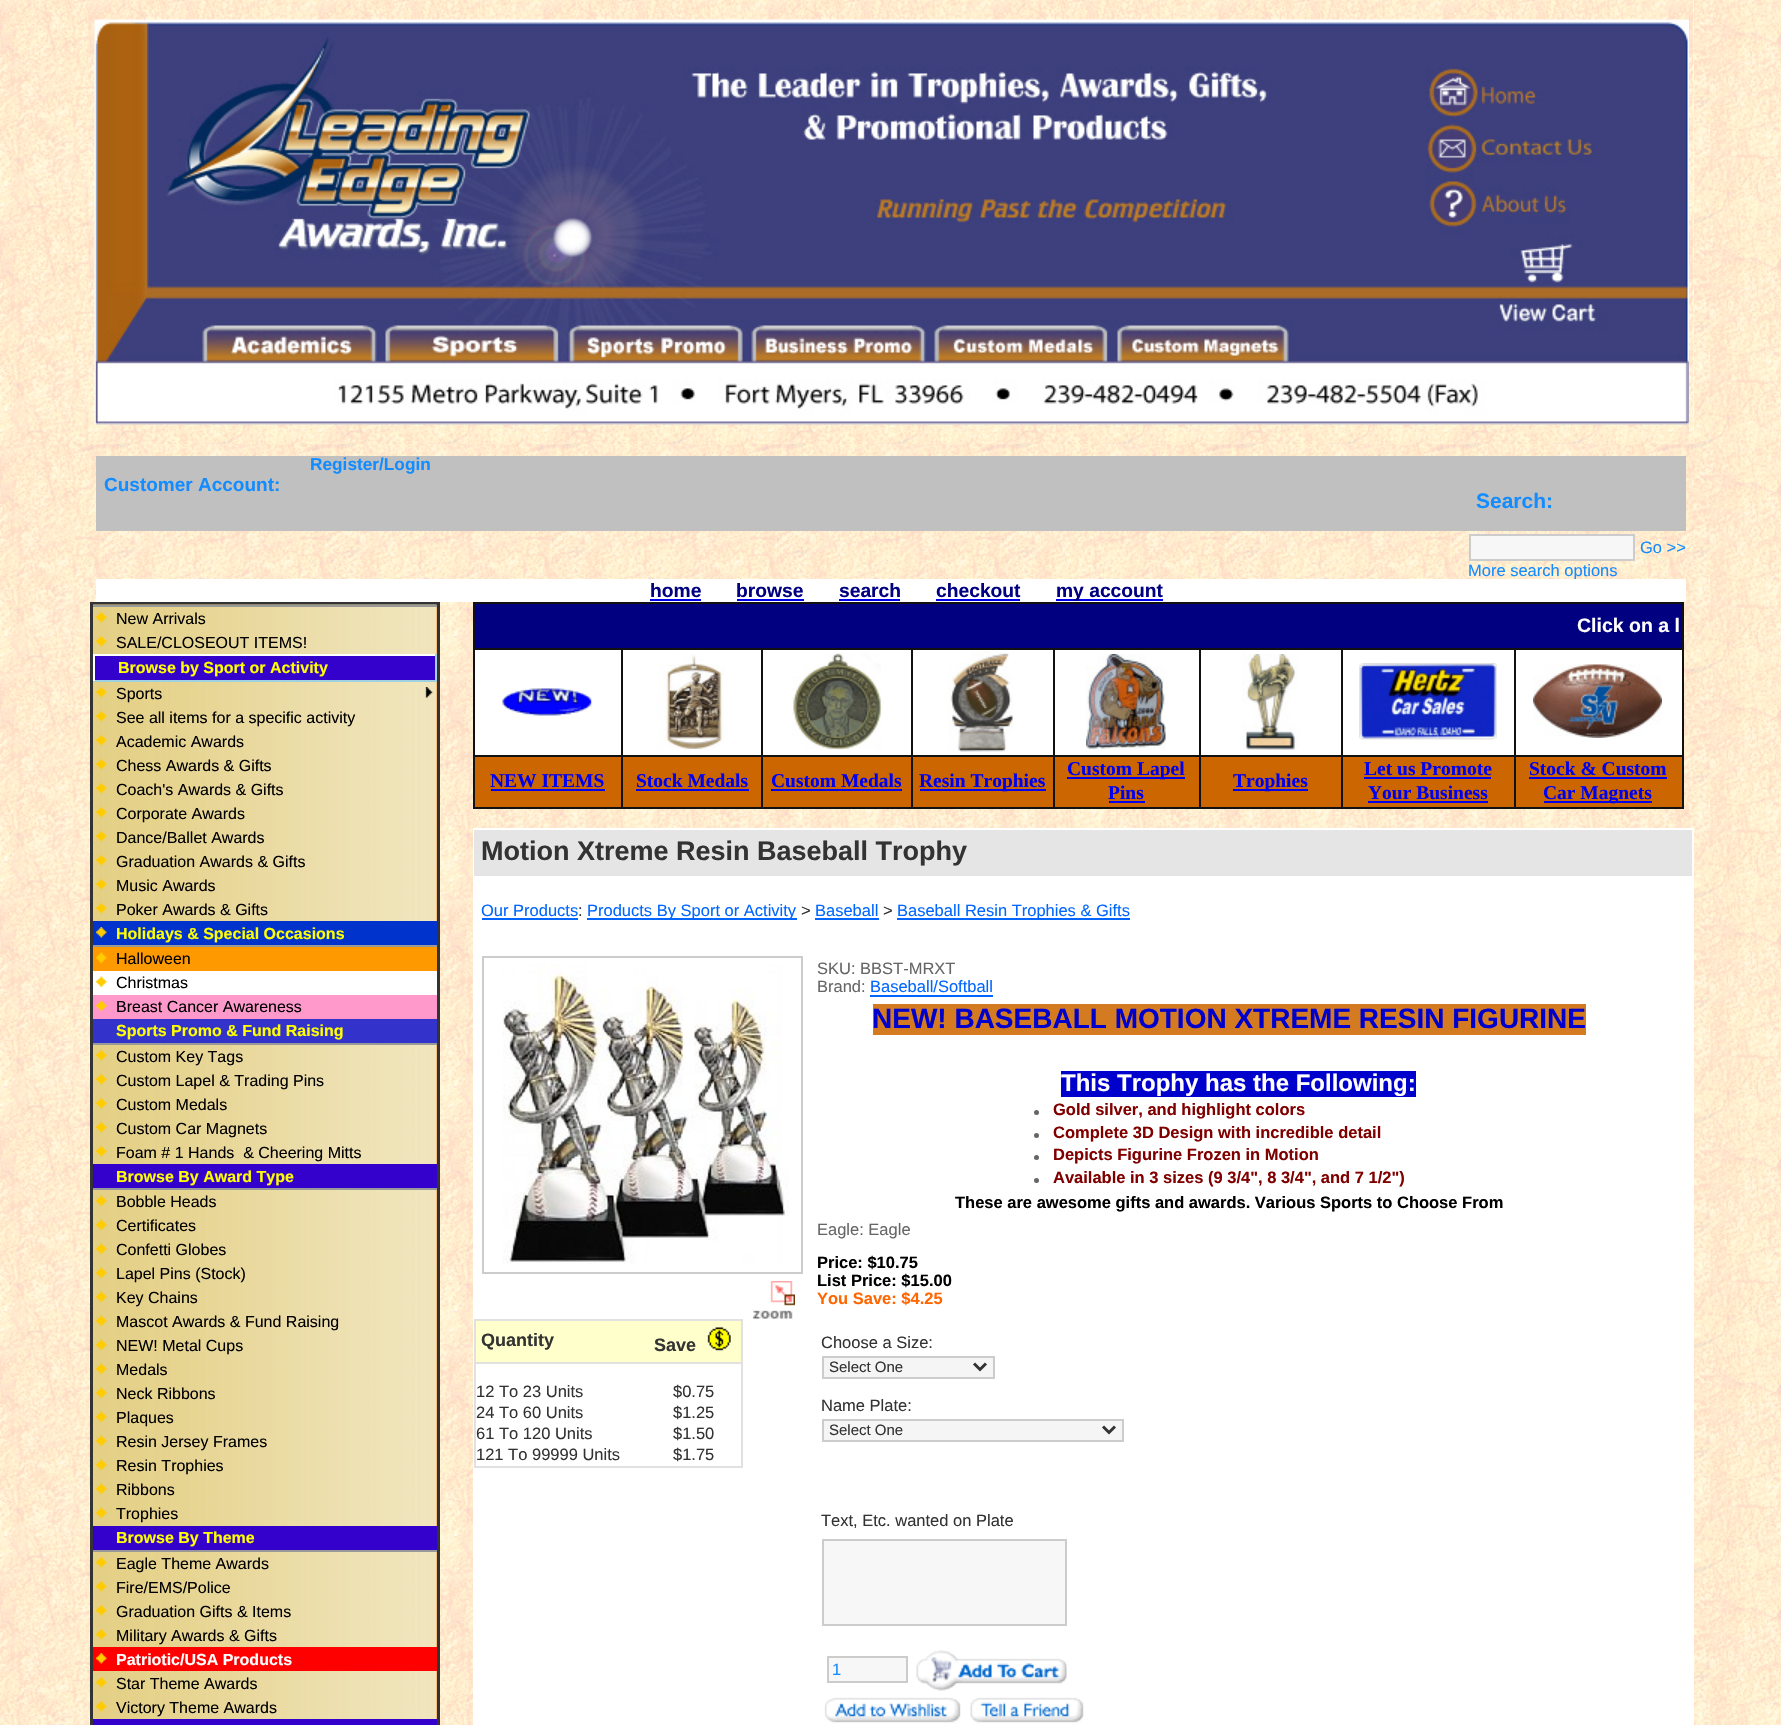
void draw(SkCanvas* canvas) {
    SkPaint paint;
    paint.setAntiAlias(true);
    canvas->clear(0xFFFFFFFF);
    canvas->drawImageRect(SkImages::DeferredFromEncodedData(SkData::MakeFromFileName("img1.png")), SkRect::MakeXYWH(0, 0, 1781, 1725), SkSamplingOptions());
    canvas->drawImageRect(SkImages::DeferredFromEncodedData(SkData::MakeFromFileName("img2.png")), SkRect::MakeXYWH(88, 0, 7, 444), SkSamplingOptions());
    canvas->drawImageRect(SkImages::DeferredFromEncodedData(SkData::MakeFromFileName("img3.png")), SkRect::MakeXYWH(94, 0, 1595, 444), SkSamplingOptions());
    canvas->drawImageRect(SkImages::DeferredFromEncodedData(SkData::MakeFromFileName("img4.png")), SkRect::MakeXYWH(94, 19, 1595, 406), SkSamplingOptions());
    paint.setColor(0xFFFFFFFF);
    canvas->drawRect(SkRect::MakeXYWH(1693, 0, 1, 444), paint);
    canvas->drawImageRect(SkImages::DeferredFromEncodedData(SkData::MakeFromFileName("img5.png")), SkRect::MakeXYWH(1689, 0, 5, 444), SkSamplingOptions());
    paint.setColor(0xFFC0C0C0);
    canvas->drawRect(SkRect::MakeXYWH(96, 456, 1590, 75), paint);
    SkFont font1(fontMgr->matchFamilyStyle("Liberation Sans", SkFontStyle::Bold()), 17.25f);
    font1.setSubpixel(true);
    paint.setColor(0xFF138CFF);
    canvas->drawString("Register/Login", 310, 470, font1, paint);
    SkFont font2(fontMgr->matchFamilyStyle("Liberation Sans", SkFontStyle::Bold()), 19);
    font2.setSubpixel(true);
    canvas->drawString("Customer Account:", 104, 491, font2, paint);
    SkFont font3(fontMgr->matchFamilyStyle("Liberation Sans", SkFontStyle::Bold()), 21);
    font3.setSubpixel(true);
    canvas->drawString("Search:", 1476, 508, font3, paint);
    paint.setColor(0xFFF7F7F7);
    canvas->drawRect(SkRect::MakeXYWH(1470, 535, 164, 25), paint);
    paint.setStyle(SkPaint::kStroke_Style);
    paint.setStrokeWidth(2);
    paint.setColor(0xFFCCCCCC);
    canvas->drawRect(SkRect::MakeXYWH(1470, 535, 164, 25), paint);
    SkFont font4(fontMgr->matchFamilyStyle("Liberation Sans", SkFontStyle::Normal()), 16.5f);
    font4.setSubpixel(true);
    paint.setStyle(SkPaint::kFill_Style);
    paint.setColor(0xFF138CFF);
    canvas->drawString("Go >>", 1640, 553, font4, paint);
    canvas->drawString("More search options", 1468, 576, font4, paint);
    paint.setColor(0xFFFFFFFF);
    canvas->drawRect(SkRect::MakeXYWH(96, 579, 1590, 23), paint);
    SkFont font5(fontMgr->matchFamilyStyle("Liberation Sans", SkFontStyle::Bold()), 19.25f);
    font5.setSubpixel(true);
    paint.setColor(0xFF000080);
    canvas->drawString("home", 650, 597, font5, paint);
    paint.setColor(0xFF0000EE);
    canvas->drawRect(SkRect::MakeXYWH(650, 599, 51, 2), paint);
    paint.setColor(0xFF000080);
    canvas->drawString("browse", 736, 597, font5, paint);
    paint.setColor(0xFF0000EE);
    canvas->drawRect(SkRect::MakeXYWH(737, 599, 67, 2), paint);
    paint.setColor(0xFF000080);
    canvas->drawString("search", 839, 597, font5, paint);
    paint.setColor(0xFF0000EE);
    canvas->drawRect(SkRect::MakeXYWH(839, 599, 61, 2), paint);
    paint.setColor(0xFF000080);
    canvas->drawString("checkout", 936, 597, font5, paint);
    paint.setColor(0xFF0000EE);
    canvas->drawRect(SkRect::MakeXYWH(936, 599, 84, 2), paint);
    canvas->drawRect(SkRect::MakeXYWH(1056, 599, 107, 2), paint);
    paint.setColor(0xFF000080);
    canvas->drawString("my account", 1056, 597, font5, paint);
    paint.setStyle(SkPaint::kStroke_Style);
    paint.setStrokeWidth(3);
    paint.setColor(0xFF333333);
    canvas->drawRect(SkRect::MakeXYWH(91.5f, 603.5f, 347, 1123), paint);
    paint.setStyle(SkPaint::kFill_Style);
    paint.setColor(0xFFFF9933);
    canvas->drawRect(SkRect::MakeXYWH(436, 607, 1, 1112), paint);
    canvas->drawImageRect(SkImages::DeferredFromEncodedData(SkData::MakeFromFileName("img6.png")), SkRect::MakeXYWH(93, 604, 344, 1115), SkSamplingOptions());
    paint.setColor(0xFF999999);
    canvas->drawRect(SkRect::MakeXYWH(93, 605, 344, 2), paint);
    canvas->drawImageRect(SkImages::DeferredFromEncodedData(SkData::MakeFromFileName("img7.png")), SkRect::MakeXYWH(96, 612, 11, 11), SkSamplingOptions());
    SkFont font6(fontMgr->matchFamilyStyle("Liberation Sans", SkFontStyle::Normal()), 16);
    font6.setSubpixel(true);
    paint.setColor(0xFF000000);
    canvas->drawString("New Arrivals", 116, 624, font6, paint);
    canvas->drawImageRect(SkImages::DeferredFromEncodedData(SkData::MakeFromFileName("img7.png")), SkRect::MakeXYWH(96, 636, 11, 11), SkSamplingOptions());
    canvas->drawString("SALE/CLOSEOUT ITEMS!", 116, 648, font6, paint);
    paint.setColor(0xFF3300CC);
    canvas->drawRect(SkRect::MakeXYWH(95, 656, 340, 24), paint);
    paint.setColor(0xFFFFFFFF);
    canvas->drawRect(SkRect::MakeXYWH(93, 654, 344, 2), paint);
    paint.setColor(0xFF9FD1E0);
    canvas->drawRect(SkRect::MakeXYWH(435, 654, 2, 27), paint);
    canvas->drawRect(SkRect::MakeXYWH(93, 680, 344, 2), paint);
    paint.setColor(0xFFFFFFFF);
    canvas->drawRect(SkRect::MakeXYWH(93, 654, 2, 27), paint);
    SkFont font7(fontMgr->matchFamilyStyle("Liberation Sans", SkFontStyle::Bold()), 16);
    font7.setSubpixel(true);
    paint.setColor(0xFFFFFF00);
    canvas->drawString("Browse by Sport or Activity", 118, 673, font7, paint);
    canvas->drawImageRect(SkImages::DeferredFromEncodedData(SkData::MakeFromFileName("img7.png")), SkRect::MakeXYWH(96, 687, 11, 11), SkSamplingOptions());
    paint.setColor(0xFF000000);
    canvas->drawString("Sports", 116, 699, font6, paint);
    canvas->drawImageRect(SkImages::DeferredFromEncodedData(SkData::MakeFromFileName("img8.png")), SkRect::MakeXYWH(425, 687, 8, 11), SkSamplingOptions());
    canvas->drawImageRect(SkImages::DeferredFromEncodedData(SkData::MakeFromFileName("img7.png")), SkRect::MakeXYWH(96, 711, 11, 11), SkSamplingOptions());
    canvas->drawString("See all items for a specific activity", 116, 723, font6, paint);
    canvas->drawImageRect(SkImages::DeferredFromEncodedData(SkData::MakeFromFileName("img7.png")), SkRect::MakeXYWH(96, 735, 11, 11), SkSamplingOptions());
    canvas->drawString("Academic Awards", 116, 747, font6, paint);
    canvas->drawImageRect(SkImages::DeferredFromEncodedData(SkData::MakeFromFileName("img7.png")), SkRect::MakeXYWH(96, 759, 11, 11), SkSamplingOptions());
    canvas->drawString("Chess Awards & Gifts", 116, 771, font6, paint);
    canvas->drawImageRect(SkImages::DeferredFromEncodedData(SkData::MakeFromFileName("img7.png")), SkRect::MakeXYWH(96, 783, 11, 11), SkSamplingOptions());
    canvas->drawString("Coach's Awards & Gifts", 116, 795, font6, paint);
    canvas->drawImageRect(SkImages::DeferredFromEncodedData(SkData::MakeFromFileName("img7.png")), SkRect::MakeXYWH(96, 807, 11, 11), SkSamplingOptions());
    canvas->drawString("Corporate Awards", 116, 819, font6, paint);
    canvas->drawImageRect(SkImages::DeferredFromEncodedData(SkData::MakeFromFileName("img7.png")), SkRect::MakeXYWH(96, 831, 11, 11), SkSamplingOptions());
    canvas->drawString("Dance/Ballet Awards", 116, 843, font6, paint);
    canvas->drawImageRect(SkImages::DeferredFromEncodedData(SkData::MakeFromFileName("img7.png")), SkRect::MakeXYWH(96, 855, 11, 11), SkSamplingOptions());
    canvas->drawString("Graduation Awards & Gifts", 116, 867, font6, paint);
    canvas->drawImageRect(SkImages::DeferredFromEncodedData(SkData::MakeFromFileName("img7.png")), SkRect::MakeXYWH(96, 879, 11, 11), SkSamplingOptions());
    canvas->drawString("Music Awards", 116, 891, font6, paint);
    canvas->drawImageRect(SkImages::DeferredFromEncodedData(SkData::MakeFromFileName("img7.png")), SkRect::MakeXYWH(96, 903, 11, 11), SkSamplingOptions());
    canvas->drawString("Poker Awards & Gifts", 116, 915, font6, paint);
    paint.setColor(0xFF0033CC);
    canvas->drawRect(SkRect::MakeXYWH(93, 921, 344, 24), paint);
    canvas->drawImageRect(SkImages::DeferredFromEncodedData(SkData::MakeFromFileName("img9.png")), SkRect::MakeXYWH(96, 927, 11, 11), SkSamplingOptions());
    paint.setColor(0xFFFFFF00);
    canvas->drawString("Holidays & Special Occasions", 116, 939, font7, paint);
    paint.setColor(0xFF999999);
    canvas->drawRect(SkRect::MakeXYWH(93, 945, 344, 2), paint);
    paint.setColor(0xFFFF9900);
    canvas->drawRect(SkRect::MakeXYWH(93, 947, 344, 24), paint);
    canvas->drawImageRect(SkImages::DeferredFromEncodedData(SkData::MakeFromFileName("img10.png")), SkRect::MakeXYWH(96, 952, 11, 11), SkSamplingOptions());
    paint.setColor(0xFF000000);
    canvas->drawString("Halloween", 116, 964, font6, paint);
    paint.setColor(0xFFFFFFFF);
    canvas->drawRect(SkRect::MakeXYWH(93, 971, 344, 24), paint);
    canvas->drawImageRect(SkImages::DeferredFromEncodedData(SkData::MakeFromFileName("img11.png")), SkRect::MakeXYWH(96, 976, 11, 11), SkSamplingOptions());
    paint.setColor(0xFF000000);
    canvas->drawString("Christmas", 116, 988, font6, paint);
    paint.setColor(0xFFFF99CC);
    canvas->drawRect(SkRect::MakeXYWH(93, 995, 344, 24), paint);
    canvas->drawImageRect(SkImages::DeferredFromEncodedData(SkData::MakeFromFileName("img12.png")), SkRect::MakeXYWH(96, 1000, 11, 11), SkSamplingOptions());
    paint.setColor(0xFF000000);
    canvas->drawString("Breast Cancer Awareness", 116, 1012, font6, paint);
    paint.setColor(0xFF3333CC);
    canvas->drawRect(SkRect::MakeXYWH(93, 1019, 344, 24), paint);
    paint.setColor(0xFFFFFF00);
    canvas->drawString("Sports Promo & Fund Raising", 116, 1036, font7, paint);
    paint.setColor(0xFF999999);
    canvas->drawRect(SkRect::MakeXYWH(93, 1043, 344, 2), paint);
    canvas->drawImageRect(SkImages::DeferredFromEncodedData(SkData::MakeFromFileName("img7.png")), SkRect::MakeXYWH(96, 1050, 11, 11), SkSamplingOptions());
    paint.setColor(0xFF000000);
    canvas->drawString("Custom Key Tags", 116, 1062, font6, paint);
    canvas->drawImageRect(SkImages::DeferredFromEncodedData(SkData::MakeFromFileName("img7.png")), SkRect::MakeXYWH(96, 1074, 11, 11), SkSamplingOptions());
    canvas->drawString("Custom Lapel & Trading Pins", 116, 1086, font6, paint);
    canvas->drawImageRect(SkImages::DeferredFromEncodedData(SkData::MakeFromFileName("img7.png")), SkRect::MakeXYWH(96, 1098, 11, 11), SkSamplingOptions());
    canvas->drawString("Custom Medals", 116, 1110, font6, paint);
    canvas->drawImageRect(SkImages::DeferredFromEncodedData(SkData::MakeFromFileName("img7.png")), SkRect::MakeXYWH(96, 1122, 11, 11), SkSamplingOptions());
    canvas->drawString("Custom Car Magnets", 116, 1134, font6, paint);
    canvas->drawImageRect(SkImages::DeferredFromEncodedData(SkData::MakeFromFileName("img7.png")), SkRect::MakeXYWH(96, 1146, 11, 11), SkSamplingOptions());
    canvas->drawString("Foam # 1 Hands  & Cheering Mitts", 116, 1158, font6, paint);
    paint.setColor(0xFF3300CC);
    canvas->drawRect(SkRect::MakeXYWH(93, 1164, 344, 24), paint);
    paint.setColor(0xFFFFFF00);
    canvas->drawString("Browse By Award Type", 116, 1182, font7, paint);
    paint.setColor(0xFF999999);
    canvas->drawRect(SkRect::MakeXYWH(93, 1188, 344, 2), paint);
    canvas->drawImageRect(SkImages::DeferredFromEncodedData(SkData::MakeFromFileName("img13.png")), SkRect::MakeXYWH(96, 1195, 11, 11), SkSamplingOptions());
    paint.setColor(0xFF000000);
    canvas->drawString("Bobble Heads", 116, 1207, font6, paint);
    canvas->drawImageRect(SkImages::DeferredFromEncodedData(SkData::MakeFromFileName("img13.png")), SkRect::MakeXYWH(96, 1219, 11, 11), SkSamplingOptions());
    canvas->drawString("Certificates", 116, 1231, font6, paint);
    canvas->drawImageRect(SkImages::DeferredFromEncodedData(SkData::MakeFromFileName("img13.png")), SkRect::MakeXYWH(96, 1243, 11, 11), SkSamplingOptions());
    canvas->drawString("Confetti Globes", 116, 1255, font6, paint);
    canvas->drawImageRect(SkImages::DeferredFromEncodedData(SkData::MakeFromFileName("img13.png")), SkRect::MakeXYWH(96, 1267, 11, 11), SkSamplingOptions());
    canvas->drawString("Lapel Pins (Stock)", 116, 1279, font6, paint);
    canvas->drawImageRect(SkImages::DeferredFromEncodedData(SkData::MakeFromFileName("img13.png")), SkRect::MakeXYWH(96, 1291, 11, 11), SkSamplingOptions());
    canvas->drawString("Key Chains", 116, 1303, font6, paint);
    canvas->drawImageRect(SkImages::DeferredFromEncodedData(SkData::MakeFromFileName("img13.png")), SkRect::MakeXYWH(96, 1315, 11, 11), SkSamplingOptions());
    canvas->drawString("Mascot Awards & Fund Raising", 116, 1327, font6, paint);
    canvas->drawImageRect(SkImages::DeferredFromEncodedData(SkData::MakeFromFileName("img13.png")), SkRect::MakeXYWH(96, 1339, 11, 11), SkSamplingOptions());
    canvas->drawString("NEW! Metal Cups", 116, 1351, font6, paint);
    canvas->drawImageRect(SkImages::DeferredFromEncodedData(SkData::MakeFromFileName("img13.png")), SkRect::MakeXYWH(96, 1363, 11, 11), SkSamplingOptions());
    canvas->drawString("Medals", 116, 1375, font6, paint);
    canvas->drawImageRect(SkImages::DeferredFromEncodedData(SkData::MakeFromFileName("img13.png")), SkRect::MakeXYWH(96, 1387, 11, 11), SkSamplingOptions());
    canvas->drawString("Neck Ribbons", 116, 1399, font6, paint);
    canvas->drawImageRect(SkImages::DeferredFromEncodedData(SkData::MakeFromFileName("img13.png")), SkRect::MakeXYWH(96, 1411, 11, 11), SkSamplingOptions());
    canvas->drawString("Plaques", 116, 1423, font6, paint);
    canvas->drawImageRect(SkImages::DeferredFromEncodedData(SkData::MakeFromFileName("img13.png")), SkRect::MakeXYWH(96, 1435, 11, 11), SkSamplingOptions());
    canvas->drawString("Resin Jersey Frames", 116, 1447, font6, paint);
    canvas->drawImageRect(SkImages::DeferredFromEncodedData(SkData::MakeFromFileName("img13.png")), SkRect::MakeXYWH(96, 1459, 11, 11), SkSamplingOptions());
    canvas->drawString("Resin Trophies", 116, 1471, font6, paint);
    canvas->drawImageRect(SkImages::DeferredFromEncodedData(SkData::MakeFromFileName("img13.png")), SkRect::MakeXYWH(96, 1483, 11, 11), SkSamplingOptions());
    canvas->drawString("Ribbons", 116, 1495, font6, paint);
    canvas->drawImageRect(SkImages::DeferredFromEncodedData(SkData::MakeFromFileName("img13.png")), SkRect::MakeXYWH(96, 1507, 11, 11), SkSamplingOptions());
    canvas->drawString("Trophies", 116, 1519, font6, paint);
    paint.setColor(0xFF3300CC);
    canvas->drawRect(SkRect::MakeXYWH(93, 1526, 344, 24), paint);
    paint.setColor(0xFFFFFF00);
    canvas->drawString("Browse By Theme", 116, 1543, font7, paint);
    paint.setColor(0xFF999999);
    canvas->drawRect(SkRect::MakeXYWH(93, 1550, 344, 2), paint);
    canvas->drawImageRect(SkImages::DeferredFromEncodedData(SkData::MakeFromFileName("img7.png")), SkRect::MakeXYWH(96, 1557, 11, 11), SkSamplingOptions());
    paint.setColor(0xFF000000);
    canvas->drawString("Eagle Theme Awards", 116, 1569, font6, paint);
    canvas->drawImageRect(SkImages::DeferredFromEncodedData(SkData::MakeFromFileName("img7.png")), SkRect::MakeXYWH(96, 1581, 11, 11), SkSamplingOptions());
    canvas->drawString("Fire/EMS/Police", 116, 1593, font6, paint);
    canvas->drawImageRect(SkImages::DeferredFromEncodedData(SkData::MakeFromFileName("img7.png")), SkRect::MakeXYWH(96, 1605, 11, 11), SkSamplingOptions());
    canvas->drawString("Graduation Gifts & Items", 116, 1617, font6, paint);
    canvas->drawImageRect(SkImages::DeferredFromEncodedData(SkData::MakeFromFileName("img7.png")), SkRect::MakeXYWH(96, 1629, 11, 11), SkSamplingOptions());
    canvas->drawString("Military Awards & Gifts", 116, 1641, font6, paint);
    paint.setColor(0xFFFF0000);
    canvas->drawRect(SkRect::MakeXYWH(93, 1647, 344, 24), paint);
    canvas->drawImageRect(SkImages::DeferredFromEncodedData(SkData::MakeFromFileName("img14.png")), SkRect::MakeXYWH(96, 1653, 11, 11), SkSamplingOptions());
    paint.setColor(0xFFFFFFFF);
    canvas->drawString("Patriotic/USA Products", 116, 1665, font7, paint);
    canvas->drawImageRect(SkImages::DeferredFromEncodedData(SkData::MakeFromFileName("img7.png")), SkRect::MakeXYWH(96, 1677, 11, 11), SkSamplingOptions());
    paint.setColor(0xFF000000);
    canvas->drawString("Star Theme Awards", 116, 1689, font6, paint);
    canvas->drawImageRect(SkImages::DeferredFromEncodedData(SkData::MakeFromFileName("img7.png")), SkRect::MakeXYWH(96, 1701, 11, 11), SkSamplingOptions());
    canvas->drawString("Victory Theme Awards", 116, 1713, font6, paint);
    paint.setColor(0xFF3300CC);
    canvas->drawRect(SkRect::MakeXYWH(93, 1719, 344, 6), paint);
    paint.setColor(0xFF111111);
    canvas->drawRect(SkRect::MakeXYWH(473, 602, 1210, 2), paint);
    canvas->drawRect(SkRect::MakeXYWH(1682, 602, 2, 207), paint);
    canvas->drawRect(SkRect::MakeXYWH(473, 807, 1210, 2), paint);
    canvas->drawRect(SkRect::MakeXYWH(473, 602, 2, 207), paint);
    paint.setColor(0xFF000080);
    canvas->drawRect(SkRect::MakeXYWH(475, 604, 1207, 44), paint);
    SkFont font8(fontMgr->matchFamilyStyle("Liberation Sans", SkFontStyle::Bold()), 19.5f);
    font8.setSubpixel(true);
    paint.setColor(0xFFFFFFFF);
    canvas->drawString("Click on a l", 1577, 632, font8, paint);
    canvas->drawRect(SkRect::MakeXYWH(475, 650, 146, 105), paint);
    paint.setColor(0xFF111111);
    canvas->drawRect(SkRect::MakeXYWH(1514, 648, 169, 2), paint);
    canvas->drawRect(SkRect::MakeXYWH(1514, 755, 169, 2), paint);
    canvas->drawRect(SkRect::MakeXYWH(1514, 755, 2, 54), paint);
    canvas->drawRect(SkRect::MakeXYWH(1341, 755, 174, 2), paint);
    canvas->drawRect(SkRect::MakeXYWH(1514, 648, 2, 108), paint);
    canvas->drawRect(SkRect::MakeXYWH(1341, 648, 174, 2), paint);
    canvas->drawRect(SkRect::MakeXYWH(1341, 755, 2, 54), paint);
    canvas->drawRect(SkRect::MakeXYWH(1199, 755, 144, 2), paint);
    canvas->drawRect(SkRect::MakeXYWH(1341, 648, 2, 108), paint);
    canvas->drawRect(SkRect::MakeXYWH(1199, 648, 144, 2), paint);
    canvas->drawRect(SkRect::MakeXYWH(1199, 755, 2, 54), paint);
    canvas->drawRect(SkRect::MakeXYWH(1053, 755, 147, 2), paint);
    canvas->drawRect(SkRect::MakeXYWH(1199, 648, 2, 108), paint);
    canvas->drawRect(SkRect::MakeXYWH(1053, 648, 147, 2), paint);
    canvas->drawRect(SkRect::MakeXYWH(1053, 755, 2, 54), paint);
    canvas->drawRect(SkRect::MakeXYWH(911, 755, 144, 2), paint);
    canvas->drawRect(SkRect::MakeXYWH(1053, 648, 2, 108), paint);
    canvas->drawRect(SkRect::MakeXYWH(911, 648, 144, 2), paint);
    canvas->drawRect(SkRect::MakeXYWH(911, 755, 2, 54), paint);
    canvas->drawRect(SkRect::MakeXYWH(761, 755, 151, 2), paint);
    canvas->drawRect(SkRect::MakeXYWH(911, 648, 2, 108), paint);
    canvas->drawRect(SkRect::MakeXYWH(761, 648, 151, 2), paint);
    canvas->drawRect(SkRect::MakeXYWH(761, 755, 2, 54), paint);
    canvas->drawRect(SkRect::MakeXYWH(621, 755, 141, 2), paint);
    canvas->drawRect(SkRect::MakeXYWH(761, 648, 2, 108), paint);
    canvas->drawRect(SkRect::MakeXYWH(621, 648, 141, 2), paint);
    canvas->drawRect(SkRect::MakeXYWH(621, 755, 2, 54), paint);
    canvas->drawRect(SkRect::MakeXYWH(473, 755, 150, 2), paint);
    canvas->drawRect(SkRect::MakeXYWH(621, 648, 2, 108), paint);
    canvas->drawRect(SkRect::MakeXYWH(473, 648, 150, 2), paint);
    canvas->drawImageRect(SkImages::DeferredFromEncodedData(SkData::MakeFromFileName("img15.png")), SkRect::MakeXYWH(502, 688, 90, 28), SkSamplingOptions());
    paint.setColor(0xFFFFFFFF);
    canvas->drawRect(SkRect::MakeXYWH(623, 650, 138, 105), paint);
    canvas->drawImageRect(SkImages::DeferredFromEncodedData(SkData::MakeFromFileName("img16.png")), SkRect::MakeXYWH(657, 654, 68, 96), SkSamplingOptions());
    canvas->drawRect(SkRect::MakeXYWH(763, 650, 148, 105), paint);
    canvas->drawImageRect(SkImages::DeferredFromEncodedData(SkData::MakeFromFileName("img17.png")), SkRect::MakeXYWH(792, 652, 90, 98), SkSamplingOptions());
    canvas->drawRect(SkRect::MakeXYWH(913, 650, 140, 105), paint);
    canvas->drawImageRect(SkImages::DeferredFromEncodedData(SkData::MakeFromFileName("img18.png")), SkRect::MakeXYWH(948, 651, 66, 102), SkSamplingOptions());
    canvas->drawRect(SkRect::MakeXYWH(1055, 650, 144, 105), paint);
    canvas->drawImageRect(SkImages::DeferredFromEncodedData(SkData::MakeFromFileName("img19.png")), SkRect::MakeXYWH(1086, 654, 80, 96), SkSamplingOptions());
    canvas->drawRect(SkRect::MakeXYWH(1201, 650, 140, 105), paint);
    canvas->drawImageRect(SkImages::DeferredFromEncodedData(SkData::MakeFromFileName("img20.png")), SkRect::MakeXYWH(1242, 654, 57, 96), SkSamplingOptions());
    canvas->drawRect(SkRect::MakeXYWH(1343, 650, 171, 105), paint);
    canvas->drawImageRect(SkImages::DeferredFromEncodedData(SkData::MakeFromFileName("img21.png")), SkRect::MakeXYWH(1359, 663, 138, 77), SkSamplingOptions());
    canvas->drawRect(SkRect::MakeXYWH(1516, 650, 166, 105), paint);
    canvas->drawImageRect(SkImages::DeferredFromEncodedData(SkData::MakeFromFileName("img22.png")), SkRect::MakeXYWH(1533, 664, 129, 74), SkSamplingOptions());
    paint.setColor(0xFFCC6600);
    canvas->drawRect(SkRect::MakeXYWH(475, 757, 146, 50), paint);
    SkFont font9(fontMgr->matchFamilyStyle("Liberation Serif", SkFontStyle::Bold()), 19.5f);
    font9.setSubpixel(true);
    paint.setColor(0xFF0000EE);
    canvas->drawString("NEW ITEMS", 490, 787, font9, paint);
    canvas->drawRect(SkRect::MakeXYWH(491, 789, 114, 2), paint);
    paint.setColor(0xFFCC6600);
    canvas->drawRect(SkRect::MakeXYWH(623, 757, 138, 50), paint);
    paint.setColor(0xFF0000EE);
    canvas->drawString("Stock Medals", 636, 787, font9, paint);
    canvas->drawRect(SkRect::MakeXYWH(636, 789, 113, 2), paint);
    paint.setColor(0xFFCC6600);
    canvas->drawRect(SkRect::MakeXYWH(763, 757, 148, 50), paint);
    paint.setColor(0xFF0000EE);
    canvas->drawString("Custom Medals", 771, 787, font9, paint);
    canvas->drawRect(SkRect::MakeXYWH(771, 789, 131, 2), paint);
    paint.setColor(0xFFCC6600);
    canvas->drawRect(SkRect::MakeXYWH(913, 757, 140, 50), paint);
    paint.setColor(0xFF0000EE);
    canvas->drawRect(SkRect::MakeXYWH(920, 789, 126, 2), paint);
    canvas->drawString("Resin Trophies", 919, 787, font9, paint);
    paint.setColor(0xFFCC6600);
    canvas->drawRect(SkRect::MakeXYWH(1055, 757, 144, 50), paint);
    paint.setColor(0xFF0000EE);
    canvas->drawRect(SkRect::MakeXYWH(1067, 777, 118, 2), paint);
    canvas->drawString("Custom Lapel", 1067, 775, font9, paint);
    canvas->drawString("Pins", 1108, 799, font9, paint);
    canvas->drawRect(SkRect::MakeXYWH(1109, 801, 36, 2), paint);
    paint.setColor(0xFFCC6600);
    canvas->drawRect(SkRect::MakeXYWH(1201, 757, 140, 50), paint);
    paint.setColor(0xFF0000EE);
    canvas->drawRect(SkRect::MakeXYWH(1233, 789, 75, 2), paint);
    canvas->drawString("Trophies", 1233, 787, font9, paint);
    paint.setColor(0xFFCC6600);
    canvas->drawRect(SkRect::MakeXYWH(1343, 757, 171, 50), paint);
    paint.setColor(0xFF0000EE);
    canvas->drawString("Let us Promote", 1364, 775, font9, paint);
    canvas->drawRect(SkRect::MakeXYWH(1364, 777, 127, 2), paint);
    canvas->drawString("Your Business", 1368, 799, font9, paint);
    canvas->drawRect(SkRect::MakeXYWH(1368, 801, 120, 2), paint);
    paint.setColor(0xFFCC6600);
    canvas->drawRect(SkRect::MakeXYWH(1516, 757, 166, 50), paint);
    paint.setColor(0xFF0000EE);
    canvas->drawString("Stock & Custom", 1529, 775, font9, paint);
    canvas->drawRect(SkRect::MakeXYWH(1529, 777, 138, 2), paint);
    canvas->drawRect(SkRect::MakeXYWH(1544, 801, 108, 2), paint);
    canvas->drawString("Car Magnets", 1543, 799, font9, paint);
    paint.setColor(0xFFFFFFFF);
    canvas->drawRect(SkRect::MakeXYWH(473, 828, 1221, 897), paint);
    paint.setColor(0xFFE5E5E5);
    canvas->drawRect(SkRect::MakeXYWH(474, 830, 1218, 46), paint);
    SkFont font10(fontMgr->matchFamilyStyle("Liberation Sans", SkFontStyle::Bold()), 27);
    font10.setSubpixel(true);
    paint.setColor(0xFF333333);
    canvas->drawString("Motion Xtreme Resin Baseball Trophy", 481, 860, font10, paint);
    paint.setColor(0xFF0066FF);
    canvas->drawString("Our Products", 481, 916, font4, paint);
    canvas->drawRect(SkRect::MakeXYWH(482, 918, 96, 2), paint);
    paint.setColor(0xFF333333);
    canvas->drawString(":", 578, 916, font4, paint);
    paint.setColor(0xFF0066FF);
    canvas->drawRect(SkRect::MakeXYWH(587, 918, 210, 2), paint);
    canvas->drawString("Products By Sport or Activity", 587, 916, font4, paint);
    paint.setColor(0xFF333333);
    canvas->drawString(">", 801, 916, font4, paint);
    paint.setColor(0xFF0066FF);
    canvas->drawString("Baseball", 815, 916, font4, paint);
    canvas->drawRect(SkRect::MakeXYWH(815, 918, 64, 2), paint);
    paint.setColor(0xFF333333);
    canvas->drawString(">", 883, 916, font4, paint);
    paint.setColor(0xFF0066FF);
    canvas->drawRect(SkRect::MakeXYWH(897, 918, 233, 2), paint);
    canvas->drawString("Baseball Resin Trophies & Gifts", 897, 916, font4, paint);
    paint.setStyle(SkPaint::kStroke_Style);
    paint.setStrokeWidth(2);
    paint.setColor(0xFFCCCCCC);
    canvas->drawRect(SkRect::MakeXYWH(483, 957, 319, 316), paint);
    canvas->drawImageRect(SkImages::DeferredFromEncodedData(SkData::MakeFromFileName("img23.png")), SkRect::MakeXYWH(502, 964, 287, 300), SkSamplingOptions());
    canvas->drawImageRect(SkImages::DeferredFromEncodedData(SkData::MakeFromFileName("img24.png")), SkRect::MakeXYWH(753, 1281, 42, 38), SkSamplingOptions());
    paint.setStyle(SkPaint::kFill_Style);
    paint.setColor(0xFFE1E1E1);
    canvas->drawRect(SkRect::MakeXYWH(474, 1319, 269, 2), paint);
    canvas->drawRect(SkRect::MakeXYWH(741, 1319, 2, 148), paint);
    canvas->drawRect(SkRect::MakeXYWH(474, 1466, 269, 2), paint);
    canvas->drawRect(SkRect::MakeXYWH(474, 1319, 2, 148), paint);
    paint.setColor(0xFFFFFFCC);
    canvas->drawRect(SkRect::MakeXYWH(476, 1321, 265, 41), paint);
    SkFont font11(fontMgr->matchFamilyStyle("Liberation Sans", SkFontStyle::Bold()), 18);
    font11.setSubpixel(true);
    paint.setColor(0xFF333333);
    canvas->drawString("Quantity", 481, 1346, font11, paint);
    paint.setColor(0xFFE1E1E1);
    canvas->drawRect(SkRect::MakeXYWH(474, 1362, 269, 2), paint);
    paint.setColor(0xFF333333);
    canvas->drawString("Save", 654, 1351, font11, paint);
    canvas->drawImageRect(SkImages::DeferredFromEncodedData(SkData::MakeFromFileName("img25.png")), SkRect::MakeXYWH(707, 1327, 24, 24), SkSamplingOptions());
    canvas->drawString("12 To 23 Units", 476, 1397, font4, paint);
    canvas->drawString("$0.75", 673, 1397, font4, paint);
    canvas->drawString("24 To 60 Units", 476, 1418, font4, paint);
    canvas->drawString("$1.25", 673, 1418, font4, paint);
    canvas->drawString("61 To 120 Units", 476, 1439, font4, paint);
    canvas->drawString("$1.50", 673, 1439, font4, paint);
    canvas->drawString("121 To 99999 Units", 476, 1460, font4, paint);
    canvas->drawString("$1.75", 673, 1460, font4, paint);
    paint.setColor(0xFF666666);
    canvas->drawString("SKU: BBST-MRXT", 817, 974, font4, paint);
    canvas->drawString("Brand:", 817, 992, font4, paint);
    paint.setColor(0xFF0066FF);
    canvas->drawString("Baseball/Softball", 870, 992, font4, paint);
    canvas->drawRect(SkRect::MakeXYWH(870, 995, 123, 2), paint);
    paint.setColor(0xFFD47A20);
    canvas->drawRect(SkRect::MakeXYWH(873, 1004, 713, 31), paint);
    SkFont font12(fontMgr->matchFamilyStyle("Liberation Sans", SkFontStyle::Bold()), 28);
    font12.setSubpixel(true);
    paint.setColor(0xFF0000CD);
    canvas->drawString("NEW! BASEBALL MOTION XTREME RESIN FIGURINE", 872, 1028, font12, paint);
    canvas->drawRect(SkRect::MakeXYWH(1061, 1071, 355, 26), paint);
    SkFont font13(fontMgr->matchFamilyStyle("Liberation Sans", SkFontStyle::Bold()), 24);
    font13.setSubpixel(true);
    paint.setColor(0xFFFFFFFF);
    canvas->drawString("This Trophy has the Following:", 1061, 1091, font13, paint);
    paint.setColor(0xFF666666);
    canvas->drawCircle(1036.5f, 1112.5f, 2.5f, paint);
    SkFont font14(fontMgr->matchFamilyStyle("Liberation Sans", SkFontStyle::Bold()), 16.5f);
    font14.setSubpixel(true);
    paint.setColor(0xFF800000);
    canvas->drawString("Gold silver, and highlight colors", 1053, 1115, font14, paint);
    paint.setColor(0xFF666666);
    canvas->drawCircle(1036.5f, 1135.5f, 2.5f, paint);
    paint.setColor(0xFF800000);
    canvas->drawString("Complete 3D Design with incredible detail", 1053, 1138, font14, paint);
    paint.setColor(0xFF666666);
    canvas->drawCircle(1036.5f, 1157.5f, 2.5f, paint);
    paint.setColor(0xFF800000);
    canvas->drawString("Depicts Figurine Frozen in Motion", 1053, 1160, font14, paint);
    paint.setColor(0xFF666666);
    canvas->drawCircle(1036.5f, 1180.5f, 2.5f, paint);
    paint.setColor(0xFF800000);
    canvas->drawString("Available in 3 sizes (9 3/4\", 8 3/4\", and 7 1/2\")", 1053, 1183, font14, paint);
    paint.setColor(0xFF000000);
    canvas->drawString("These are awesome gifts and awards. Various Sports to Choose From", 955, 1208, font14, paint);
    paint.setColor(0xFF666666);
    canvas->drawString("Eagle: Eagle", 817, 1235, font4, paint);
    paint.setColor(0xFF000000);
    canvas->drawString("Price: $10.75", 817, 1268, font14, paint);
    canvas->drawString("List Price: $15.00", 817, 1286, font14, paint);
    paint.setColor(0xFFFF6600);
    canvas->drawString("You Save: $4.25", 817, 1304, font14, paint);
    paint.setColor(0xFF333333);
    canvas->drawString("Choose a Size:", 821, 1348, font4, paint);
    paint.setColor(0xFFF5F5F5);
    canvas->drawRect(SkRect::MakeXYWH(823, 1357, 171, 21), paint);
    paint.setStyle(SkPaint::kStroke_Style);
    paint.setColor(0xFFCCCCCC);
    canvas->drawRect(SkRect::MakeXYWH(823, 1357, 171, 21), paint);
    paint.setStrokeWidth(3);
    paint.setColor(0xFF333333);
    canvas->drawPath(SkPathBuilder().moveTo(974, 1363.5f).lineTo(980, 1369.5f).lineTo(986, 1363.5f).detach(), paint);
    SkFont font15(fontMgr->matchFamilyStyle("Liberation Sans", SkFontStyle::Normal()), 15);
    font15.setSubpixel(true);
    paint.setStyle(SkPaint::kFill_Style);
    canvas->drawString("Select One", 829, 1372, font15, paint);
    canvas->drawString("Name Plate:", 821, 1411, font4, paint);
    paint.setColor(0xFFF5F5F5);
    canvas->drawRect(SkRect::MakeXYWH(823, 1420, 300, 21), paint);
    paint.setStyle(SkPaint::kStroke_Style);
    paint.setStrokeWidth(2);
    paint.setColor(0xFFCCCCCC);
    canvas->drawRect(SkRect::MakeXYWH(823, 1420, 300, 21), paint);
    paint.setStrokeWidth(3);
    paint.setColor(0xFF333333);
    canvas->drawPath(SkPathBuilder().moveTo(1103, 1426.5f).lineTo(1109, 1432.5f).lineTo(1115, 1426.5f).detach(), paint);
    paint.setStyle(SkPaint::kFill_Style);
    canvas->drawString("Select One", 829, 1435, font15, paint);
    canvas->drawString("Text, Etc. wanted on Plate", 821, 1526, font4, paint);
    paint.setColor(0xFFF7F7F7);
    canvas->drawRect(SkRect::MakeXYWH(823, 1540, 243, 85), paint);
    paint.setStyle(SkPaint::kStroke_Style);
    paint.setStrokeWidth(2);
    paint.setColor(0xFFCCCCCC);
    canvas->drawRect(SkRect::MakeXYWH(823, 1540, 243, 85), paint);
    paint.setStyle(SkPaint::kFill_Style);
    paint.setColor(0xFFF7F7F7);
    canvas->drawRect(SkRect::MakeXYWH(828, 1657, 79, 25), paint);
    paint.setStyle(SkPaint::kStroke_Style);
    paint.setColor(0xFFCCCCCC);
    canvas->drawRect(SkRect::MakeXYWH(828, 1657, 79, 25), paint);
    paint.setStyle(SkPaint::kFill_Style);
    paint.setColor(0xFF138CFF);
    canvas->drawString("1", 832, 1675, font4, paint);
    canvas->drawImageRect(SkImages::DeferredFromEncodedData(SkData::MakeFromFileName("img26.png")), SkRect::MakeXYWH(916, 1650, 151, 41), SkSamplingOptions());
    canvas->drawImageRect(SkImages::DeferredFromEncodedData(SkData::MakeFromFileName("img27.png")), SkRect::MakeXYWH(824, 1697, 137, 26), SkSamplingOptions());
    canvas->drawImageRect(SkImages::DeferredFromEncodedData(SkData::MakeFromFileName("img28.png")), SkRect::MakeXYWH(970, 1697, 114, 26), SkSamplingOptions());
}
